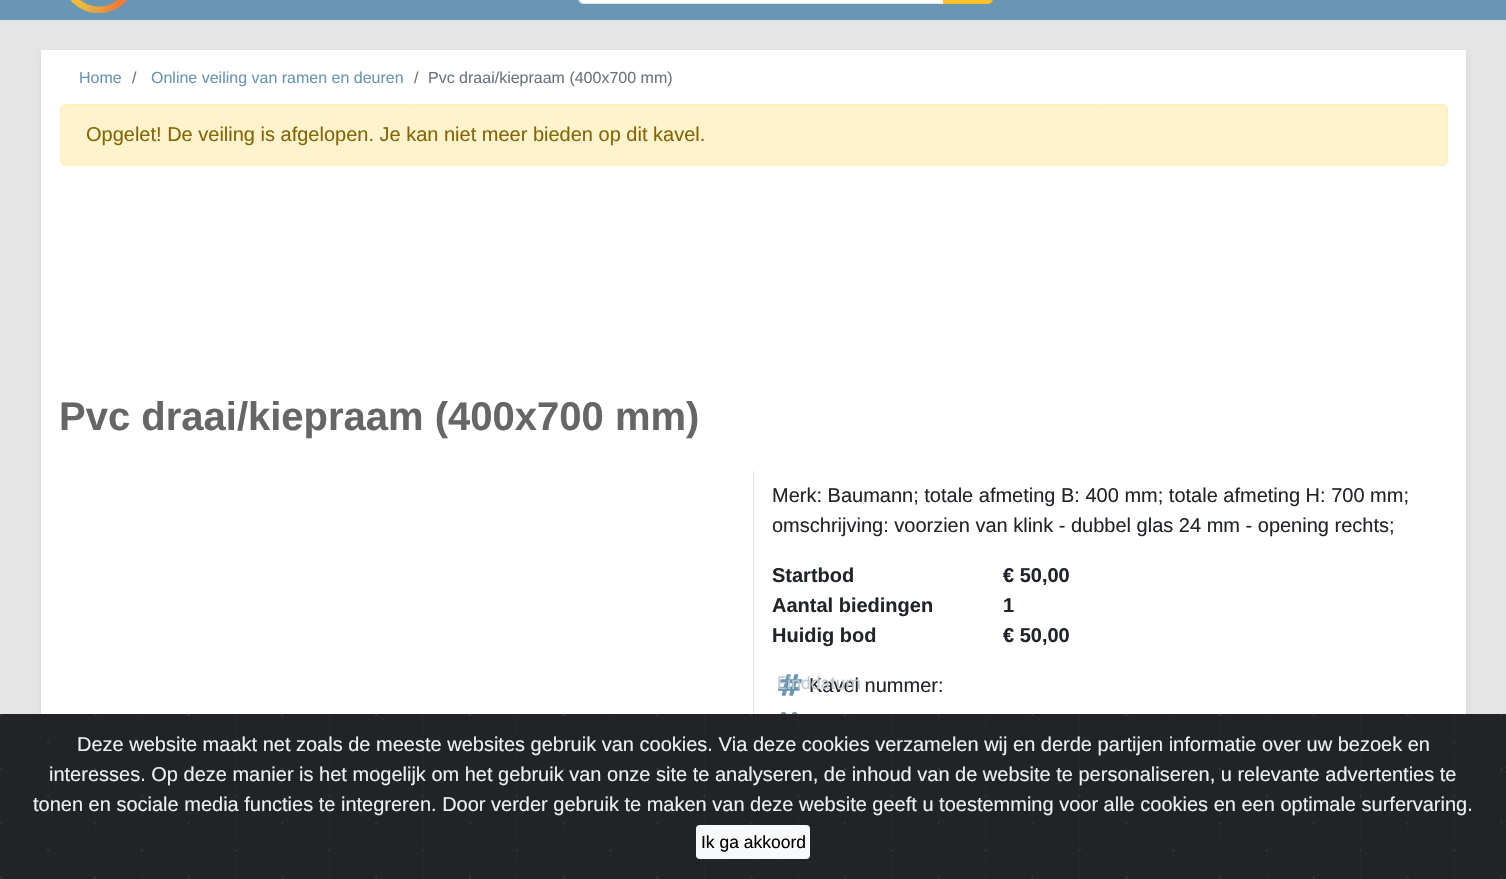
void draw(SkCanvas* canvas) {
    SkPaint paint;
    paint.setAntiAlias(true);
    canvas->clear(0xFFE5E5E5);
    paint.setColor(0xFF6996B3);
    canvas->drawRect(SkRect::MakeXYWH(0, 0, 1506, 20), paint);
    paint.setColor(0xFFFFFFFF);
    canvas->drawPath(SkPathBuilder().moveTo(583, -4).lineTo(943, -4).lineTo(943, 3).lineTo(583, 3).cubicTo(581, 3, 579, 1, 579, -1).lineTo(579, 0).cubicTo(579, -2, 581, -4, 583, -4).close().detach(), paint);
    paint.setStyle(SkPaint::kStroke_Style);
    paint.setStrokeWidth(1);
    paint.setColor(0xFFE5E5E5);
    canvas->drawPath(SkPathBuilder().moveTo(583, -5.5f).lineTo(943.5f, -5.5f).lineTo(943.5f, 3.5f).lineTo(583, 3.5f).cubicTo(580.5f, 3.5f, 578.5f, 1.5f, 578.5f, -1).cubicTo(578.5f, -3.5f, 580.5f, -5.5f, 583, -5.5f).close().detach(), paint);
    paint.setStyle(SkPaint::kFill_Style);
    paint.setColor(0xFFFFC02E);
    canvas->drawPath(SkPathBuilder().moveTo(943.5f, -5.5f).lineTo(988, -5.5f).cubicTo(990.5f, -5.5f, 992.5f, -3.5f, 992.5f, -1).cubicTo(992.5f, 1.5f, 990.5f, 3.5f, 988, 3.5f).lineTo(943.5f, 3.5f).close().detach(), paint);
    paint.setStyle(SkPaint::kStroke_Style);
    canvas->drawPath(SkPathBuilder().moveTo(943.5f, -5.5f).lineTo(988, -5.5f).cubicTo(990.5f, -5.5f, 992.5f, -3.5f, 992.5f, -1).cubicTo(992.5f, 1.5f, 990.5f, 3.5f, 988, 3.5f).lineTo(943.5f, 3.5f).close().detach(), paint);
    canvas->drawImageRect(SkImages::DeferredFromEncodedData(SkData::MakeFromFileName("img1.png")), SkRect::MakeXYWH(70, 0, 57, 13), SkSamplingOptions());
    paint.setStyle(SkPaint::kFill_Style);
    paint.setColor(0x12000000);
    paint.setMaskFilter(SkMaskFilter::MakeBlur(kNormal_SkBlurStyle, 2.5f));
    canvas->drawRect(SkRect::MakeXYWH(41, 53, 1425, 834), paint);
    paint.setMaskFilter(nullptr);
    paint.setColor(0xFFFFFFFF);
    canvas->drawRect(SkRect::MakeXYWH(41, 50, 1425, 664), paint);
    SkFont font1(fontMgr->matchFamilyStyle("Liberation Sans", SkFontStyle::Normal()), 16);
    font1.setSubpixel(true);
    paint.setColor(0xFF6996B3);
    canvas->drawString("Home", 79, 83, font1, paint);
    paint.setColor(0xFF6C757D);
    canvas->drawString("/", 132, 83, font1, paint);
    paint.setColor(0xFF6996B3);
    canvas->drawString("Online veiling van ramen en deuren", 151, 83, font1, paint);
    paint.setColor(0xFF6C757D);
    canvas->drawString("/", 414, 83, font1, paint);
    canvas->drawString("Pvc draai/kiepraam (400x700 mm)", 428, 83, font1, paint);
    paint.setColor(0xFFFFF3CD);
    canvas->drawRoundRect(SkRect::MakeXYWH(60.5f, 104.5f, 1387, 61), 4.5f, 4.5f, paint);
    paint.setStyle(SkPaint::kStroke_Style);
    paint.setColor(0xFFFFEEBA);
    canvas->drawRoundRect(SkRect::MakeXYWH(60.5f, 104.5f, 1387, 61), 4.5f, 4.5f, paint);
    SkFont font2(fontMgr->matchFamilyStyle("Liberation Sans", SkFontStyle::Normal()), 20);
    font2.setSubpixel(true);
    paint.setStyle(SkPaint::kFill_Style);
    paint.setColor(0xFF856404);
    canvas->drawString("Opgelet! De veiling is afgelopen. Je kan niet meer bieden op dit kavel.", 86, 141, font2, paint);
    SkFont font3(fontMgr->matchFamilyStyle("Liberation Sans", SkFontStyle::Bold()), 40);
    font3.setSubpixel(true);
    paint.setColor(0xFF666666);
    canvas->drawString("Pvc draai/kiepraam (400x700 mm)", 59, 430, font3, paint);
    paint.setColor(0xFFDEE2E6);
    canvas->drawRect(SkRect::MakeXYWH(753, 471, 1, 243), paint);
    paint.setColor(0xFF212529);
    canvas->drawString("Merk: Baumann; totale afmeting B: 400 mm; totale afmeting H: 700 mm;", 772, 502, font2, paint);
    canvas->drawString("omschrijving: voorzien van klink - dubbel glas 24 mm - opening rechts;", 772, 532, font2, paint);
    SkFont font4(fontMgr->matchFamilyStyle("Liberation Sans", SkFontStyle::Bold()), 20);
    font4.setSubpixel(true);
    canvas->drawString("Startbod", 772, 582, font4, paint);
    canvas->drawString("€ 50,00", 1003, 582, font4, paint);
    canvas->drawString("Aantal biedingen", 772, 612, font4, paint);
    canvas->drawString("1", 1003, 612, font4, paint);
    canvas->drawString("Huidig bod", 772, 642, font4, paint);
    canvas->drawString("€ 50,00", 1003, 642, font4, paint);
    canvas->drawImageRect(SkImages::DeferredFromEncodedData(SkData::MakeFromFileName("img2.png")), SkRect::MakeXYWH(778, 674, 24, 22), SkSamplingOptions());
    canvas->drawString("Kavel nummer:", 809, 692, font2, paint);
    SkFont font5(fontMgr->matchFamilyStyle("Roboto", SkFontStyle::Normal()), 17.5f);
    font5.setSubpixel(true);
    paint.setColor(0xFFC1C9CF);
    canvas->drawString("Einddatum", 777, 689, font5, paint);
    canvas->drawImageRect(SkImages::DeferredFromEncodedData(SkData::MakeFromFileName("img3.png")), SkRect::MakeXYWH(780, 712, 18, 2), SkSamplingOptions());
    canvas->drawImageRect(SkImages::DeferredFromEncodedData(SkData::MakeFromFileName("img4.png")), SkRect::MakeXYWH(0, 714, 1506, 165), SkSamplingOptions());
    paint.setColor(0xFFECF0F1);
    canvas->drawString("Deze website maakt net zoals de meeste websites gebruik van cookies. Via deze cookies verzamelen wij en derde partijen informatie over uw bezoek en", 77, 751, font2, paint);
    canvas->drawString("interesses. Op deze manier is het mogelijk om het gebruik van onze site te analyseren, de inhoud van de website te personaliseren, u relevante advertenties te", 49, 781, font2, paint);
    canvas->drawString("tonen en sociale media functies te integreren. Door verder gebruik te maken van deze website geeft u toestemming voor alle cookies en een optimale surfervaring.", 33, 811, font2, paint);
    paint.setColor(0xFFF8F9FA);
    canvas->drawRoundRect(SkRect::MakeXYWH(696, 825, 114, 34), 4, 4, paint);
    SkFont font6(fontMgr->matchFamilyStyle("Liberation Sans", SkFontStyle::Normal()), 17.5f);
    font6.setSubpixel(true);
    paint.setColor(0xFF000000);
    canvas->drawString("Ik ga akkoord", 701, 848, font6, paint);
}
